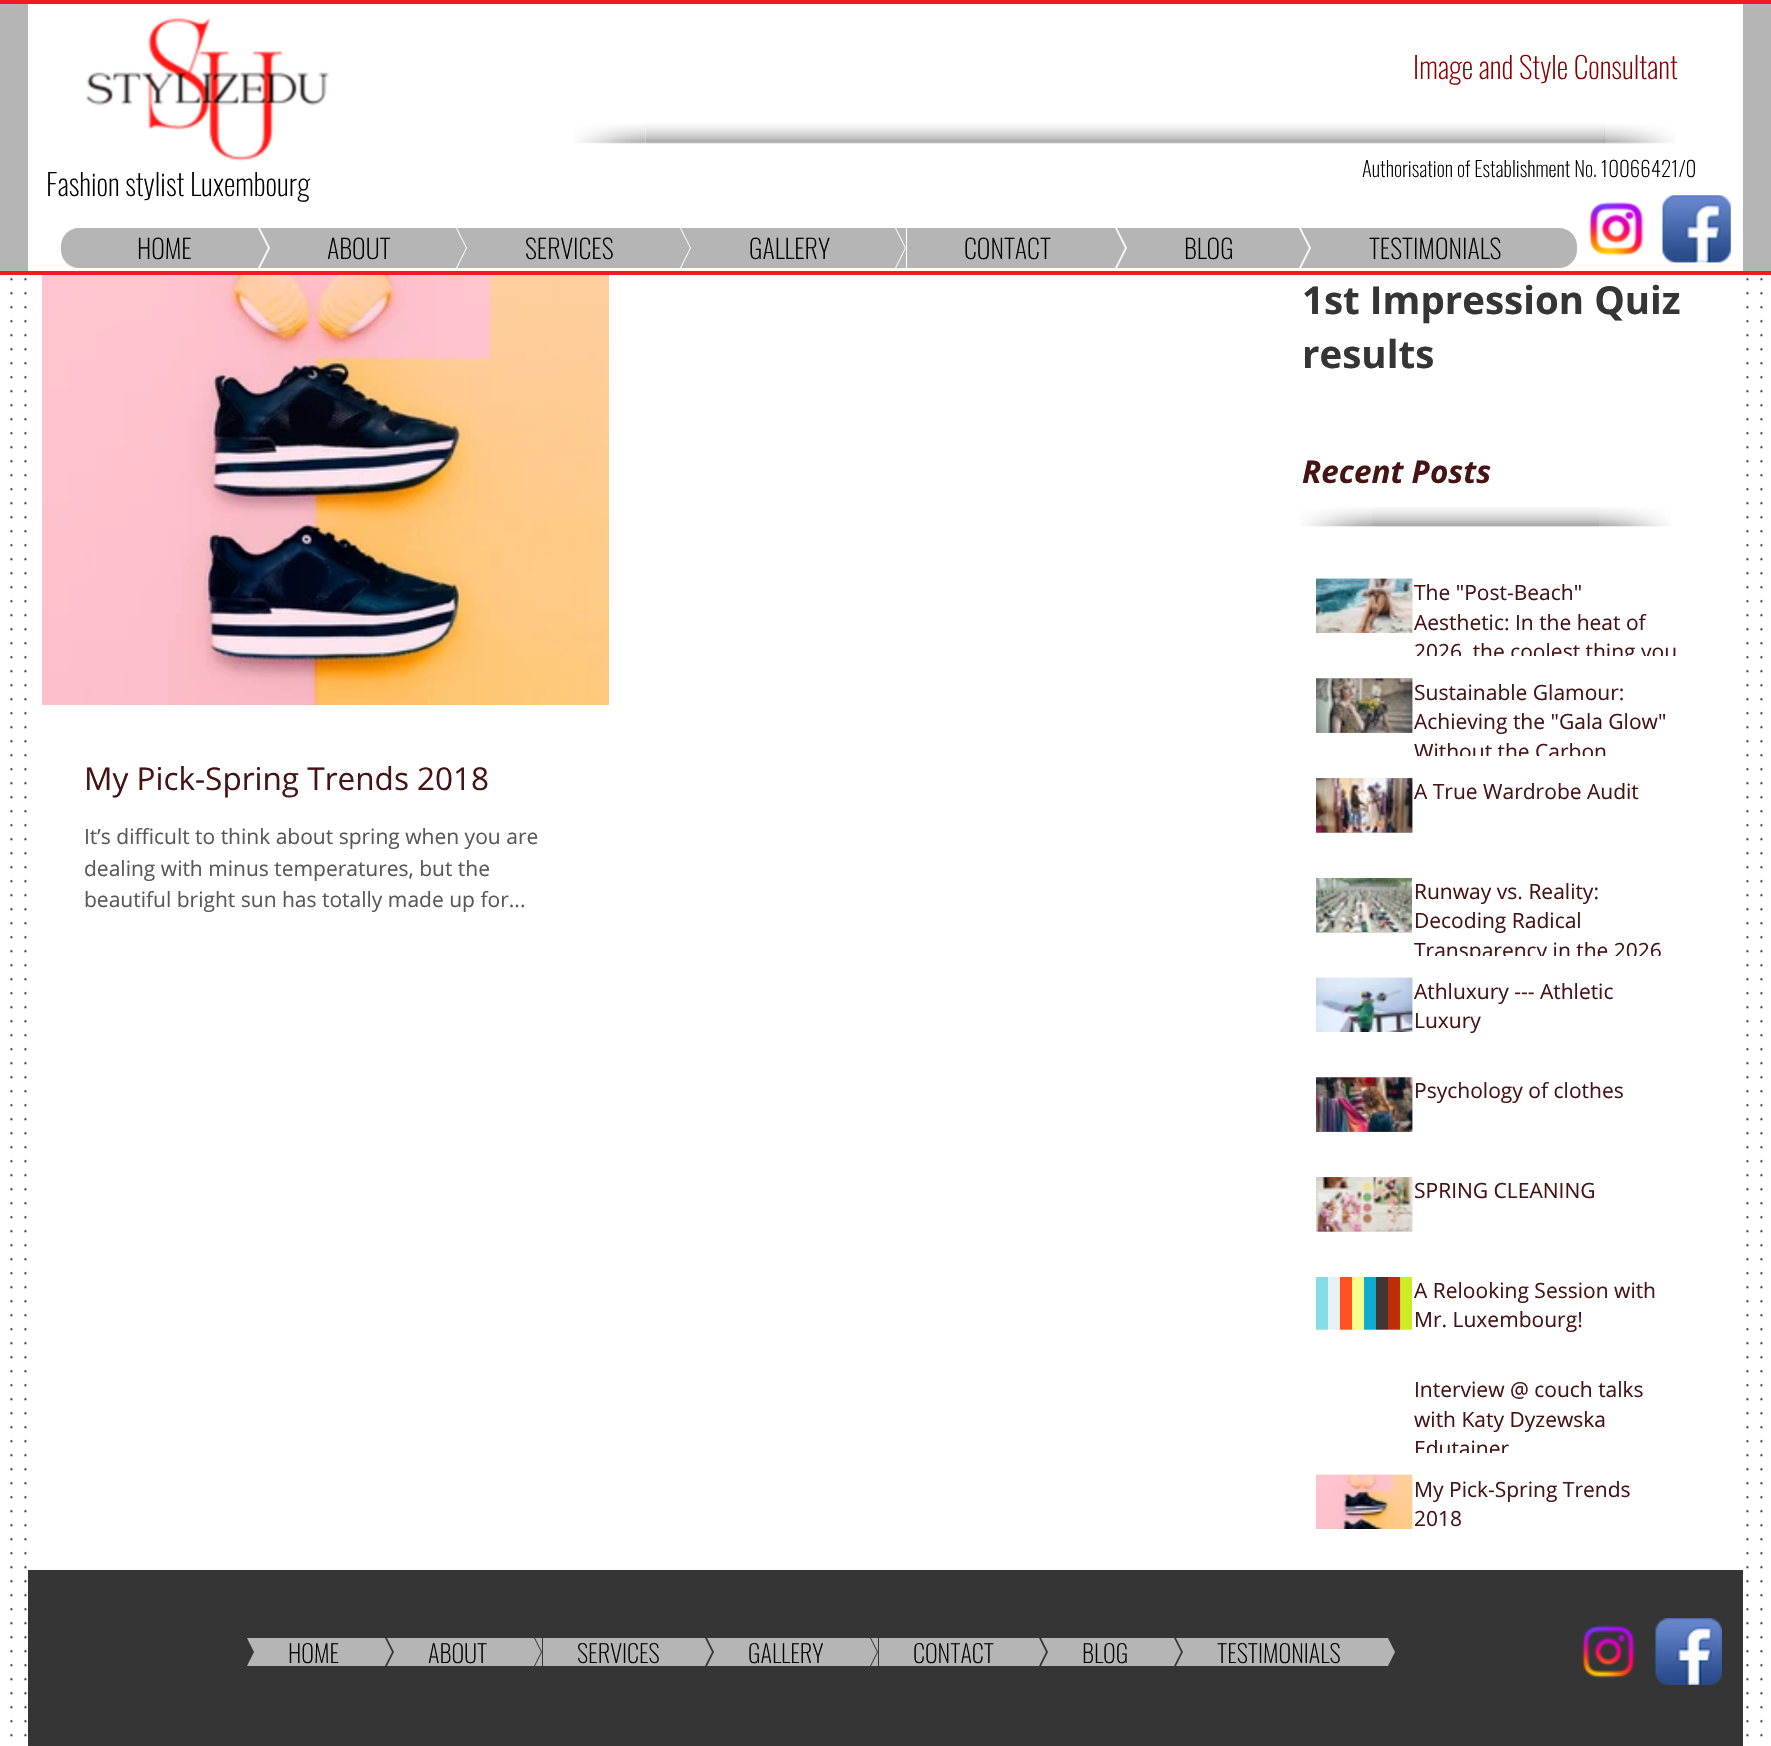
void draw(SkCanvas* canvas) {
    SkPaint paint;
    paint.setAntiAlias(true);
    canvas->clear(0xFFFFFFFF);
    paint.setColor(0xFFB5B5B5);
    canvas->drawRect(SkRect::MakeXYWH(0, 4, 1771, 267), paint);
    paint.setColor(0xFFED1C24);
    canvas->drawRect(SkRect::MakeXYWH(0, 0, 1771, 4), paint);
    canvas->drawRect(SkRect::MakeXYWH(0, 271, 1771, 4), paint);
    paint.setColor(0xFFFFFFFF);
    canvas->drawRect(SkRect::MakeXYWH(28, 4, 1715, 267), paint);
    canvas->drawImageRect(SkImages::DeferredFromEncodedData(SkData::MakeFromFileName("img1.png")), SkRect::MakeXYWH(86, 18, 243, 143), SkSamplingOptions());
    SkFont font1(fontMgr->matchFamilyStyle("Oswald", SkFontStyle(200, SkFontStyle::kNormal_Width, SkFontStyle::kUpright_Slant)), 29.75f);
    font1.setSubpixel(true);
    paint.setColor(0xFF8B0000);
    canvas->drawString("Image and Style Consultant", 1413, 79, font1, paint);
    canvas->drawImageRect(SkImages::DeferredFromEncodedData(SkData::MakeFromFileName("img2.png")), SkRect::MakeXYWH(646, 123, 959, 21), SkSamplingOptions());
    canvas->drawImageRect(SkImages::DeferredFromEncodedData(SkData::MakeFromFileName("img3.png")), SkRect::MakeXYWH(574, 124, 72, 20), SkSamplingOptions());
    canvas->drawImageRect(SkImages::DeferredFromEncodedData(SkData::MakeFromFileName("img4.png")), SkRect::MakeXYWH(1604, 124, 72, 20), SkSamplingOptions());
    SkFont font2(fontMgr->matchFamilyStyle("Oswald", SkFontStyle(200, SkFontStyle::kNormal_Width, SkFontStyle::kUpright_Slant)), 21);
    font2.setSubpixel(true);
    paint.setColor(0xFF000000);
    canvas->drawString("Authorisation of Establishment No. 10066421/0", 1362, 177, font2, paint);
    canvas->drawString("Fashion stylist Luxembourg", 46, 196, font1, paint);
    canvas->drawImageRect(SkImages::DeferredFromEncodedData(SkData::MakeFromFileName("img5.png")), SkRect::MakeXYWH(1588, 202, 54, 54), SkSamplingOptions());
    canvas->drawImageRect(SkImages::DeferredFromEncodedData(SkData::MakeFromFileName("img6.png")), SkRect::MakeXYWH(1662, 195, 67, 68), SkSamplingOptions());
    paint.setColor(0xFFB5B5B5);
    canvas->drawPath(SkPathBuilder().moveTo(79, 228).lineTo(145, 228).lineTo(145, 268).lineTo(79, 268).cubicTo(69, 268, 61, 260, 61, 250).lineTo(61, 246).cubicTo(61, 236, 69, 228, 79, 228).close().detach(), paint);
    canvas->save();
    canvas->clipRect(SkRect::MakeXYWH(145, 228, 123, 40));
    canvas->drawPath(SkPathBuilder().moveTo(268, 248).lineTo(145, 248).lineTo(145, 4).close().detach(), paint);
    canvas->drawPath(SkPathBuilder().moveTo(145, 248).lineTo(268, 248).lineTo(145, 494).close().detach(), paint);
    canvas->restore();
    SkFont font3(fontMgr->matchFamilyStyle("Oswald", SkFontStyle(200, SkFontStyle::kNormal_Width, SkFontStyle::kUpright_Slant)), 26.25f);
    font3.setSubpixel(true);
    paint.setColor(0xFF000000);
    canvas->drawString("HOME", 137, 259, font3, paint);
    canvas->save();
    canvas->clipRect(SkRect::MakeXYWH(147, 228, 123, 40));
    paint.setColor(0xFFB5B5B5);
    canvas->drawPath(SkPathBuilder().moveTo(147, 4).lineTo(270, 4).lineTo(270, 248).close().moveTo(270, 494).lineTo(147, 494).lineTo(270, 248).close().detach(), paint);
    canvas->restore();
    canvas->drawRect(SkRect::MakeXYWH(270, 228, 73, 40), paint);
    canvas->save();
    canvas->clipRect(SkRect::MakeXYWH(343, 228, 123, 40));
    canvas->drawPath(SkPathBuilder().moveTo(466, 248).lineTo(343, 248).lineTo(343, 4).close().detach(), paint);
    canvas->drawPath(SkPathBuilder().moveTo(343, 248).lineTo(466, 248).lineTo(343, 494).close().detach(), paint);
    canvas->restore();
    paint.setColor(0xFF000000);
    canvas->drawString("ABOUT", 327, 259, font3, paint);
    canvas->save();
    canvas->clipRect(SkRect::MakeXYWH(345, 228, 122, 40));
    paint.setColor(0xFFB5B5B5);
    canvas->drawPath(SkPathBuilder().moveTo(345, 4).lineTo(467, 4).lineTo(467, 248).close().moveTo(467, 494).lineTo(345, 494).lineTo(467, 248).close().detach(), paint);
    canvas->restore();
    canvas->drawRect(SkRect::MakeXYWH(467, 228, 100, 40), paint);
    canvas->save();
    canvas->clipRect(SkRect::MakeXYWH(567, 228, 123, 40));
    canvas->drawPath(SkPathBuilder().moveTo(690, 248).lineTo(567, 248).lineTo(567, 4).close().detach(), paint);
    canvas->drawPath(SkPathBuilder().moveTo(567, 248).lineTo(690, 248).lineTo(567, 494).close().detach(), paint);
    canvas->restore();
    paint.setColor(0xFF000000);
    canvas->drawString("SERVICES", 525, 259, font3, paint);
    canvas->save();
    canvas->clipRect(SkRect::MakeXYWH(569, 228, 122, 40));
    paint.setColor(0xFFB5B5B5);
    canvas->drawPath(SkPathBuilder().moveTo(569, 4).lineTo(691, 4).lineTo(691, 248).close().moveTo(691, 494).lineTo(569, 494).lineTo(691, 248).close().detach(), paint);
    canvas->restore();
    canvas->drawRect(SkRect::MakeXYWH(691, 228, 91, 40), paint);
    canvas->save();
    canvas->clipRect(SkRect::MakeXYWH(782, 228, 123, 40));
    canvas->drawPath(SkPathBuilder().moveTo(905, 248).lineTo(782, 248).lineTo(782, 4).close().detach(), paint);
    canvas->drawPath(SkPathBuilder().moveTo(782, 248).lineTo(905, 248).lineTo(782, 494).close().detach(), paint);
    canvas->restore();
    paint.setColor(0xFF000000);
    canvas->drawString("GALLERY", 749, 259, font3, paint);
    canvas->save();
    canvas->clipRect(SkRect::MakeXYWH(784, 228, 123, 40));
    paint.setColor(0xFFB5B5B5);
    canvas->drawPath(SkPathBuilder().moveTo(784, 4).lineTo(906, 4).lineTo(906, 248).close().moveTo(906, 494).lineTo(784, 494).lineTo(906, 248).close().detach(), paint);
    canvas->restore();
    canvas->drawRect(SkRect::MakeXYWH(907, 228, 96, 40), paint);
    canvas->save();
    canvas->clipRect(SkRect::MakeXYWH(1003, 228, 122, 40));
    canvas->drawPath(SkPathBuilder().moveTo(1125, 248).lineTo(1003, 248).lineTo(1003, 4).close().detach(), paint);
    canvas->drawPath(SkPathBuilder().moveTo(1003, 248).lineTo(1125, 248).lineTo(1003, 494).close().detach(), paint);
    canvas->restore();
    paint.setColor(0xFF000000);
    canvas->drawString("CONTACT", 964, 259, font3, paint);
    canvas->save();
    canvas->clipRect(SkRect::MakeXYWH(1005, 228, 122, 40));
    paint.setColor(0xFFB5B5B5);
    canvas->drawPath(SkPathBuilder().moveTo(1004, 4).lineTo(1127, 4).lineTo(1127, 248).close().moveTo(1127, 494).lineTo(1004, 494).lineTo(1127, 248).close().detach(), paint);
    canvas->restore();
    canvas->drawRect(SkRect::MakeXYWH(1127, 228, 60, 40), paint);
    canvas->save();
    canvas->clipRect(SkRect::MakeXYWH(1187, 228, 122, 40));
    canvas->drawPath(SkPathBuilder().moveTo(1309, 248).lineTo(1186, 248).lineTo(1186, 4).close().detach(), paint);
    canvas->drawPath(SkPathBuilder().moveTo(1186, 248).lineTo(1309, 248).lineTo(1186, 494).close().detach(), paint);
    canvas->restore();
    paint.setColor(0xFF000000);
    canvas->drawString("BLOG", 1184, 259, font3, paint);
    canvas->save();
    canvas->clipRect(SkRect::MakeXYWH(1188, 228, 123, 40));
    paint.setColor(0xFFB5B5B5);
    canvas->drawPath(SkPathBuilder().moveTo(1188, 4).lineTo(1311, 4).lineTo(1311, 248).close().moveTo(1311, 494).lineTo(1188, 494).lineTo(1311, 248).close().detach(), paint);
    canvas->restore();
    canvas->drawRect(SkRect::MakeXYWH(1311, 228, 143, 40), paint);
    canvas->drawPath(SkPathBuilder().moveTo(1454, 228).lineTo(1559, 228).cubicTo(1569, 228, 1577, 236, 1577, 246).lineTo(1577, 250).cubicTo(1577, 260, 1569, 268, 1559, 268).lineTo(1454, 268).close().detach(), paint);
    paint.setColor(0xFF000000);
    canvas->drawString("TESTIMONIALS", 1369, 259, font3, paint);
    canvas->drawImageRect(SkImages::DeferredFromEncodedData(SkData::MakeFromFileName("img7.png")), SkRect::MakeXYWH(1590, 202, 54, 54), SkSamplingOptions());
    canvas->drawImageRect(SkImages::DeferredFromEncodedData(SkData::MakeFromFileName("img8.png")), SkRect::MakeXYWH(1663, 195, 68, 68), SkSamplingOptions());
    canvas->drawImageRect(SkImages::DeferredFromEncodedData(SkData::MakeFromFileName("img34.png")), SkRect::MakeXYWH(10, 277, 1753, 1460), SkSamplingOptions());
    paint.setColor(0xFFFFFFFF);
    canvas->drawRect(SkRect::MakeXYWH(38, 277, 1697, 1292), paint);
    SkFont font4(fontMgr->matchFamilyStyle("Open Sans", SkFontStyle::Bold()), 38.5f);
    font4.setSubpixel(true);
    paint.setColor(0xFF353535);
    canvas->drawString("1st Impression Quiz", 1302, 314, font4, paint);
    canvas->drawString("results", 1302, 368, font4, paint);
    SkFont font5(fontMgr->matchFamilyStyle("Open Sans", SkFontStyle::BoldItalic()), 31.5f);
    font5.setSubpixel(true);
    paint.setColor(0xFF461414);
    canvas->drawString("Recent Posts", 1302, 483, font5, paint);
    canvas->drawImageRect(SkImages::DeferredFromEncodedData(SkData::MakeFromFileName("img9.png")), SkRect::MakeXYWH(1372, 507, 228, 20), SkSamplingOptions());
    canvas->drawImageRect(SkImages::DeferredFromEncodedData(SkData::MakeFromFileName("img10.png")), SkRect::MakeXYWH(1300, 507, 72, 20), SkSamplingOptions());
    canvas->drawImageRect(SkImages::DeferredFromEncodedData(SkData::MakeFromFileName("img11.png")), SkRect::MakeXYWH(1599, 507, 72, 20), SkSamplingOptions());
    canvas->drawImageRect(SkImages::DeferredFromEncodedData(SkData::MakeFromFileName("img13.png")), SkRect::MakeXYWH(42, 704, 567, 1), SkSamplingOptions());
    canvas->drawImageRect(SkImages::DeferredFromEncodedData(SkData::MakeFromFileName("img12.png")), SkRect::MakeXYWH(42, 275, 567, 430), SkSamplingOptions());
    SkFont font6(fontMgr->matchFamilyStyle("Open Sans", SkFontStyle::Normal()), 31.5f);
    font6.setSubpixel(true);
    canvas->drawString("My Pick-Spring Trends 2018", 84, 790, font6, paint);
    SkFont font7(fontMgr->matchFamilyStyle("Open Sans", SkFontStyle::Normal()), 21);
    font7.setSubpixel(true);
    paint.setColor(0xFF585858);
    canvas->drawString("It’s difficult to think about spring when you are", 84, 844, font7, paint);
    canvas->drawString("dealing with minus temperatures, but the", 84, 876, font7, paint);
    canvas->drawString("beautiful bright sun has totally made up for...", 84, 907, font7, paint);
    canvas->drawImageRect(SkImages::DeferredFromEncodedData(SkData::MakeFromFileName("img14.png")), SkRect::MakeXYWH(1316, 578, 97, 55), SkSamplingOptions());
    canvas->drawImageRect(SkImages::DeferredFromEncodedData(SkData::MakeFromFileName("img15.png")), SkRect::MakeXYWH(1316, 578, 97, 55), SkSamplingOptions());
    paint.setColor(0xFF461414);
    canvas->drawString("The \"Post-Beach\"", 1414, 600, font7, paint);
    canvas->drawString("Aesthetic: In the heat of", 1414, 630, font7, paint);
    canvas->save();
    canvas->clipRect(SkRect::MakeXYWH(1414, 578, 264, 78));
    canvas->drawString("2026, the coolest thing you", 1414, 659, font7, paint);
    canvas->restore();
    canvas->drawImageRect(SkImages::DeferredFromEncodedData(SkData::MakeFromFileName("img16.png")), SkRect::MakeXYWH(1316, 678, 97, 55), SkSamplingOptions());
    canvas->drawImageRect(SkImages::DeferredFromEncodedData(SkData::MakeFromFileName("img17.png")), SkRect::MakeXYWH(1316, 678, 97, 55), SkSamplingOptions());
    canvas->drawString("Sustainable Glamour:", 1414, 700, font7, paint);
    canvas->drawString("Achieving the \"Gala Glow\"", 1414, 729, font7, paint);
    canvas->save();
    canvas->clipRect(SkRect::MakeXYWH(1414, 677, 264, 79));
    canvas->drawString("Without the Carbon", 1414, 759, font7, paint);
    canvas->restore();
    canvas->drawImageRect(SkImages::DeferredFromEncodedData(SkData::MakeFromFileName("img18.png")), SkRect::MakeXYWH(1316, 778, 97, 55), SkSamplingOptions());
    canvas->drawImageRect(SkImages::DeferredFromEncodedData(SkData::MakeFromFileName("img19.png")), SkRect::MakeXYWH(1316, 778, 97, 55), SkSamplingOptions());
    canvas->drawString("A True Wardrobe Audit", 1414, 799, font7, paint);
    canvas->drawImageRect(SkImages::DeferredFromEncodedData(SkData::MakeFromFileName("img20.png")), SkRect::MakeXYWH(1316, 878, 96, 54), SkSamplingOptions());
    canvas->drawImageRect(SkImages::DeferredFromEncodedData(SkData::MakeFromFileName("img21.png")), SkRect::MakeXYWH(1316, 932, 96, 1), SkSamplingOptions());
    canvas->drawString("Runway vs. Reality:", 1414, 899, font7, paint);
    canvas->drawString("Decoding Radical", 1414, 928, font7, paint);
    canvas->save();
    canvas->clipRect(SkRect::MakeXYWH(1414, 877, 264, 79));
    canvas->drawString("Transparency in the 2026", 1414, 958, font7, paint);
    canvas->restore();
    canvas->drawImageRect(SkImages::DeferredFromEncodedData(SkData::MakeFromFileName("img22.png")), SkRect::MakeXYWH(1316, 977, 97, 55), SkSamplingOptions());
    canvas->drawImageRect(SkImages::DeferredFromEncodedData(SkData::MakeFromFileName("img23.png")), SkRect::MakeXYWH(1316, 977, 97, 55), SkSamplingOptions());
    canvas->drawString("Athluxury --- Athletic", 1414, 999, font7, paint);
    canvas->drawString("Luxury", 1414, 1028, font7, paint);
    canvas->drawImageRect(SkImages::DeferredFromEncodedData(SkData::MakeFromFileName("img24.png")), SkRect::MakeXYWH(1316, 1077, 97, 55), SkSamplingOptions());
    canvas->drawImageRect(SkImages::DeferredFromEncodedData(SkData::MakeFromFileName("img25.png")), SkRect::MakeXYWH(1316, 1077, 97, 55), SkSamplingOptions());
    canvas->drawString("Psychology of clothes", 1414, 1098, font7, paint);
    canvas->drawImageRect(SkImages::DeferredFromEncodedData(SkData::MakeFromFileName("img26.png")), SkRect::MakeXYWH(1316, 1177, 97, 55), SkSamplingOptions());
    canvas->drawImageRect(SkImages::DeferredFromEncodedData(SkData::MakeFromFileName("img27.png")), SkRect::MakeXYWH(1316, 1177, 97, 55), SkSamplingOptions());
    canvas->drawString("SPRING CLEANING", 1414, 1198, font7, paint);
    canvas->drawImageRect(SkImages::DeferredFromEncodedData(SkData::MakeFromFileName("img28.png")), SkRect::MakeXYWH(1316, 1277, 96, 53), SkSamplingOptions());
    canvas->drawImageRect(SkImages::DeferredFromEncodedData(SkData::MakeFromFileName("img29.png")), SkRect::MakeXYWH(1316, 1329, 96, 1), SkSamplingOptions());
    canvas->drawString("A Relooking Session with", 1414, 1298, font7, paint);
    canvas->drawString("Mr. Luxembourg!", 1414, 1327, font7, paint);
    canvas->drawString("Interview @ couch talks", 1414, 1397, font7, paint);
    canvas->drawString("with Katy Dyzewska", 1414, 1427, font7, paint);
    canvas->save();
    canvas->clipRect(SkRect::MakeXYWH(1414, 1374, 264, 79));
    canvas->drawString("Edutainer", 1414, 1456, font7, paint);
    canvas->restore();
    canvas->drawImageRect(SkImages::DeferredFromEncodedData(SkData::MakeFromFileName("img30.png")), SkRect::MakeXYWH(1316, 1474, 97, 55), SkSamplingOptions());
    canvas->drawImageRect(SkImages::DeferredFromEncodedData(SkData::MakeFromFileName("img31.png")), SkRect::MakeXYWH(1316, 1474, 97, 55), SkSamplingOptions());
    canvas->drawString("My Pick-Spring Trends", 1414, 1497, font7, paint);
    canvas->drawString("2018", 1414, 1526, font7, paint);
    paint.setColor(0xFF353535);
    canvas->drawRect(SkRect::MakeXYWH(28, 1570, 1715, 176), paint);
    canvas->save();
    canvas->clipRect(SkRect::MakeXYWH(131, 1638, 123, 28));
    paint.setColor(0xFFB5B5B5);
    canvas->drawPath(SkPathBuilder().moveTo(131, 1407).lineTo(254, 1407).lineTo(254, 1652).close().moveTo(254, 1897).lineTo(131, 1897).lineTo(254, 1652).close().detach(), paint);
    canvas->restore();
    canvas->drawRect(SkRect::MakeXYWH(254, 1638, 16, 28), paint);
    canvas->save();
    canvas->clipRect(SkRect::MakeXYWH(270, 1638, 122, 28));
    canvas->drawPath(SkPathBuilder().moveTo(392, 1652).lineTo(270, 1652).lineTo(270, 1407).close().detach(), paint);
    canvas->drawPath(SkPathBuilder().moveTo(270, 1652).lineTo(392, 1652).lineTo(270, 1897).close().detach(), paint);
    canvas->restore();
    SkFont font8(fontMgr->matchFamilyStyle("Oswald", SkFontStyle(200, SkFontStyle::kNormal_Width, SkFontStyle::kUpright_Slant)), 24.5f);
    font8.setSubpixel(true);
    paint.setColor(0xFF000000);
    canvas->drawString("HOME", 288, 1663, font8, paint);
    canvas->save();
    canvas->clipRect(SkRect::MakeXYWH(271, 1638, 123, 28));
    paint.setColor(0xFFB5B5B5);
    canvas->drawPath(SkPathBuilder().moveTo(271, 1407).lineTo(394, 1407).lineTo(394, 1652).close().moveTo(394, 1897).lineTo(271, 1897).lineTo(394, 1652).close().detach(), paint);
    canvas->restore();
    canvas->drawRect(SkRect::MakeXYWH(394, 1638, 24, 28), paint);
    canvas->save();
    canvas->clipRect(SkRect::MakeXYWH(418, 1638, 123, 28));
    canvas->drawPath(SkPathBuilder().moveTo(541, 1652).lineTo(418, 1652).lineTo(418, 1407).close().detach(), paint);
    canvas->drawPath(SkPathBuilder().moveTo(418, 1652).lineTo(541, 1652).lineTo(418, 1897).close().detach(), paint);
    canvas->restore();
    paint.setColor(0xFF000000);
    canvas->drawString("ABOUT", 428, 1663, font8, paint);
    canvas->save();
    canvas->clipRect(SkRect::MakeXYWH(420, 1638, 123, 28));
    paint.setColor(0xFFB5B5B5);
    canvas->drawPath(SkPathBuilder().moveTo(420, 1407).lineTo(542, 1407).lineTo(542, 1652).close().moveTo(542, 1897).lineTo(420, 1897).lineTo(542, 1652).close().detach(), paint);
    canvas->restore();
    canvas->drawRect(SkRect::MakeXYWH(543, 1638, 47, 28), paint);
    canvas->save();
    canvas->clipRect(SkRect::MakeXYWH(590, 1638, 122, 28));
    canvas->drawPath(SkPathBuilder().moveTo(712, 1652).lineTo(590, 1652).lineTo(590, 1407).close().detach(), paint);
    canvas->drawPath(SkPathBuilder().moveTo(590, 1652).lineTo(712, 1652).lineTo(590, 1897).close().detach(), paint);
    canvas->restore();
    paint.setColor(0xFF000000);
    canvas->drawString("SERVICES", 577, 1663, font8, paint);
    canvas->save();
    canvas->clipRect(SkRect::MakeXYWH(592, 1638, 122, 28));
    paint.setColor(0xFFB5B5B5);
    canvas->drawPath(SkPathBuilder().moveTo(592, 1407).lineTo(714, 1407).lineTo(714, 1652).close().moveTo(714, 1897).lineTo(592, 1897).lineTo(714, 1652).close().detach(), paint);
    canvas->restore();
    canvas->drawRect(SkRect::MakeXYWH(714, 1638, 40, 28), paint);
    canvas->save();
    canvas->clipRect(SkRect::MakeXYWH(754, 1638, 123, 28));
    canvas->drawPath(SkPathBuilder().moveTo(877, 1652).lineTo(754, 1652).lineTo(754, 1407).close().detach(), paint);
    canvas->drawPath(SkPathBuilder().moveTo(754, 1652).lineTo(877, 1652).lineTo(754, 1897).close().detach(), paint);
    canvas->restore();
    paint.setColor(0xFF000000);
    canvas->drawString("GALLERY", 748, 1663, font8, paint);
    canvas->save();
    canvas->clipRect(SkRect::MakeXYWH(756, 1638, 123, 28));
    paint.setColor(0xFFB5B5B5);
    canvas->drawPath(SkPathBuilder().moveTo(756, 1407).lineTo(878, 1407).lineTo(878, 1652).close().moveTo(878, 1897).lineTo(756, 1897).lineTo(878, 1652).close().detach(), paint);
    canvas->restore();
    canvas->drawRect(SkRect::MakeXYWH(879, 1638, 45, 28), paint);
    canvas->save();
    canvas->clipRect(SkRect::MakeXYWH(924, 1638, 123, 28));
    canvas->drawPath(SkPathBuilder().moveTo(1046, 1652).lineTo(924, 1652).lineTo(924, 1407).close().detach(), paint);
    canvas->drawPath(SkPathBuilder().moveTo(924, 1652).lineTo(1046, 1652).lineTo(924, 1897).close().detach(), paint);
    canvas->restore();
    paint.setColor(0xFF000000);
    canvas->drawString("CONTACT", 913, 1663, font8, paint);
    canvas->save();
    canvas->clipRect(SkRect::MakeXYWH(926, 1638, 122, 28));
    paint.setColor(0xFFB5B5B5);
    canvas->drawPath(SkPathBuilder().moveTo(926, 1407).lineTo(1048, 1407).lineTo(1048, 1652).close().moveTo(1048, 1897).lineTo(926, 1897).lineTo(1048, 1652).close().detach(), paint);
    canvas->restore();
    canvas->drawRect(SkRect::MakeXYWH(1048, 1638, 11, 28), paint);
    canvas->save();
    canvas->clipRect(SkRect::MakeXYWH(1059, 1638, 122, 28));
    canvas->drawPath(SkPathBuilder().moveTo(1181, 1652).lineTo(1059, 1652).lineTo(1059, 1407).close().detach(), paint);
    canvas->drawPath(SkPathBuilder().moveTo(1059, 1652).lineTo(1181, 1652).lineTo(1059, 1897).close().detach(), paint);
    canvas->restore();
    paint.setColor(0xFF000000);
    canvas->drawString("BLOG", 1082, 1663, font8, paint);
    canvas->save();
    canvas->clipRect(SkRect::MakeXYWH(1061, 1638, 122, 28));
    paint.setColor(0xFFB5B5B5);
    canvas->drawPath(SkPathBuilder().moveTo(1060, 1407).lineTo(1183, 1407).lineTo(1183, 1652).close().moveTo(1183, 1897).lineTo(1060, 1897).lineTo(1183, 1652).close().detach(), paint);
    canvas->restore();
    canvas->drawRect(SkRect::MakeXYWH(1183, 1638, 89, 28), paint);
    canvas->save();
    canvas->clipRect(SkRect::MakeXYWH(1272, 1638, 123, 28));
    canvas->drawPath(SkPathBuilder().moveTo(1395, 1652).lineTo(1272, 1652).lineTo(1272, 1407).close().detach(), paint);
    canvas->drawPath(SkPathBuilder().moveTo(1272, 1652).lineTo(1395, 1652).lineTo(1272, 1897).close().detach(), paint);
    canvas->restore();
    paint.setColor(0xFF000000);
    canvas->drawString("TESTIMONIALS", 1217, 1663, font8, paint);
    canvas->drawImageRect(SkImages::DeferredFromEncodedData(SkData::MakeFromFileName("img32.png")), SkRect::MakeXYWH(1581, 1625, 54, 53), SkSamplingOptions());
    canvas->drawImageRect(SkImages::DeferredFromEncodedData(SkData::MakeFromFileName("img33.png")), SkRect::MakeXYWH(1655, 1618, 67, 67), SkSamplingOptions());
}
